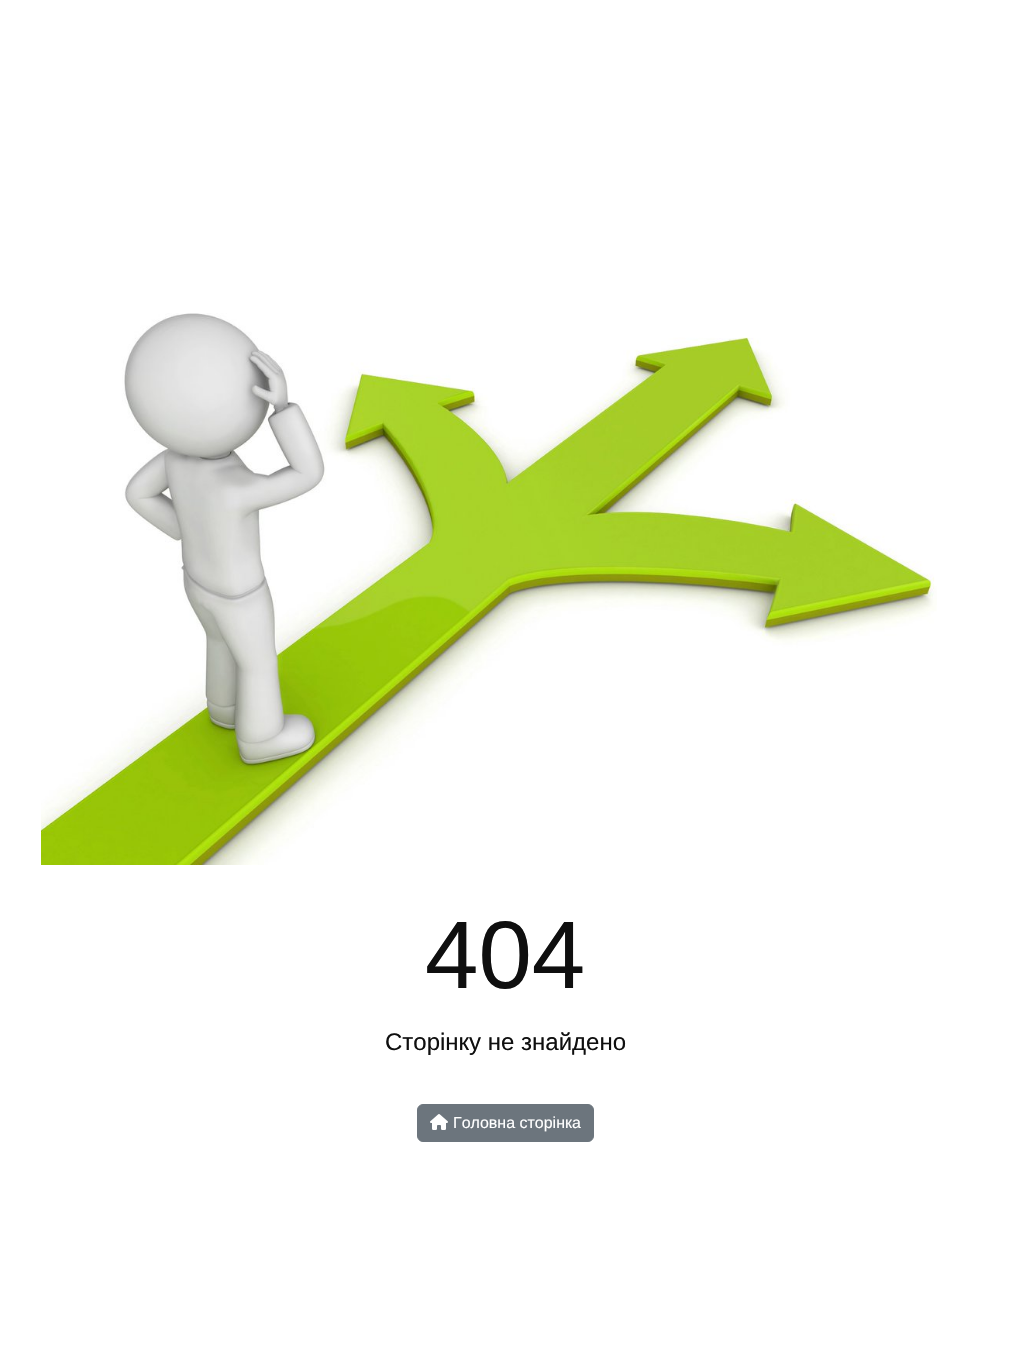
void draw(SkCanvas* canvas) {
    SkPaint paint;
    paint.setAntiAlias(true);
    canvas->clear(0xFFFFFFFF);
    canvas->drawImageRect(SkImages::DeferredFromEncodedData(SkData::MakeFromFileName("img1.png")), SkRect::MakeXYWH(41, 313, 896, 552), SkSamplingOptions());
    SkFont font1(fontMgr->matchFamilyStyle("Liberation Sans", SkFontStyle::Normal()), 96);
    font1.setSubpixel(true);
    paint.setColor(0xFF0F0F0F);
    canvas->drawString("404", 425, 988, font1, paint);
    SkFont font2(fontMgr->matchFamilyStyle("Liberation Sans", SkFontStyle::Normal()), 24);
    font2.setSubpixel(true);
    canvas->drawString("Сторінку не знайдено", 385, 1050, font2, paint);
    paint.setColor(0xFF6C757D);
    canvas->drawRoundRect(SkRect::MakeXYWH(417.5f, 1104.5f, 176, 37), 5.5f, 5.5f, paint);
    paint.setStyle(SkPaint::kStroke_Style);
    paint.setStrokeWidth(1);
    canvas->drawRoundRect(SkRect::MakeXYWH(417.5f, 1104.5f, 176, 37), 5.5f, 5.5f, paint);
    canvas->drawImageRect(SkImages::DeferredFromEncodedData(SkData::MakeFromFileName("img2.png")), SkRect::MakeXYWH(430, 1114, 18, 16), SkSamplingOptions());
    SkFont font3(fontMgr->matchFamilyStyle("Liberation Sans", SkFontStyle::Normal()), 16);
    font3.setSubpixel(true);
    paint.setStyle(SkPaint::kFill_Style);
    paint.setColor(0xFFFFFFFF);
    canvas->drawString("Головна сторінка", 453, 1128, font3, paint);
}
